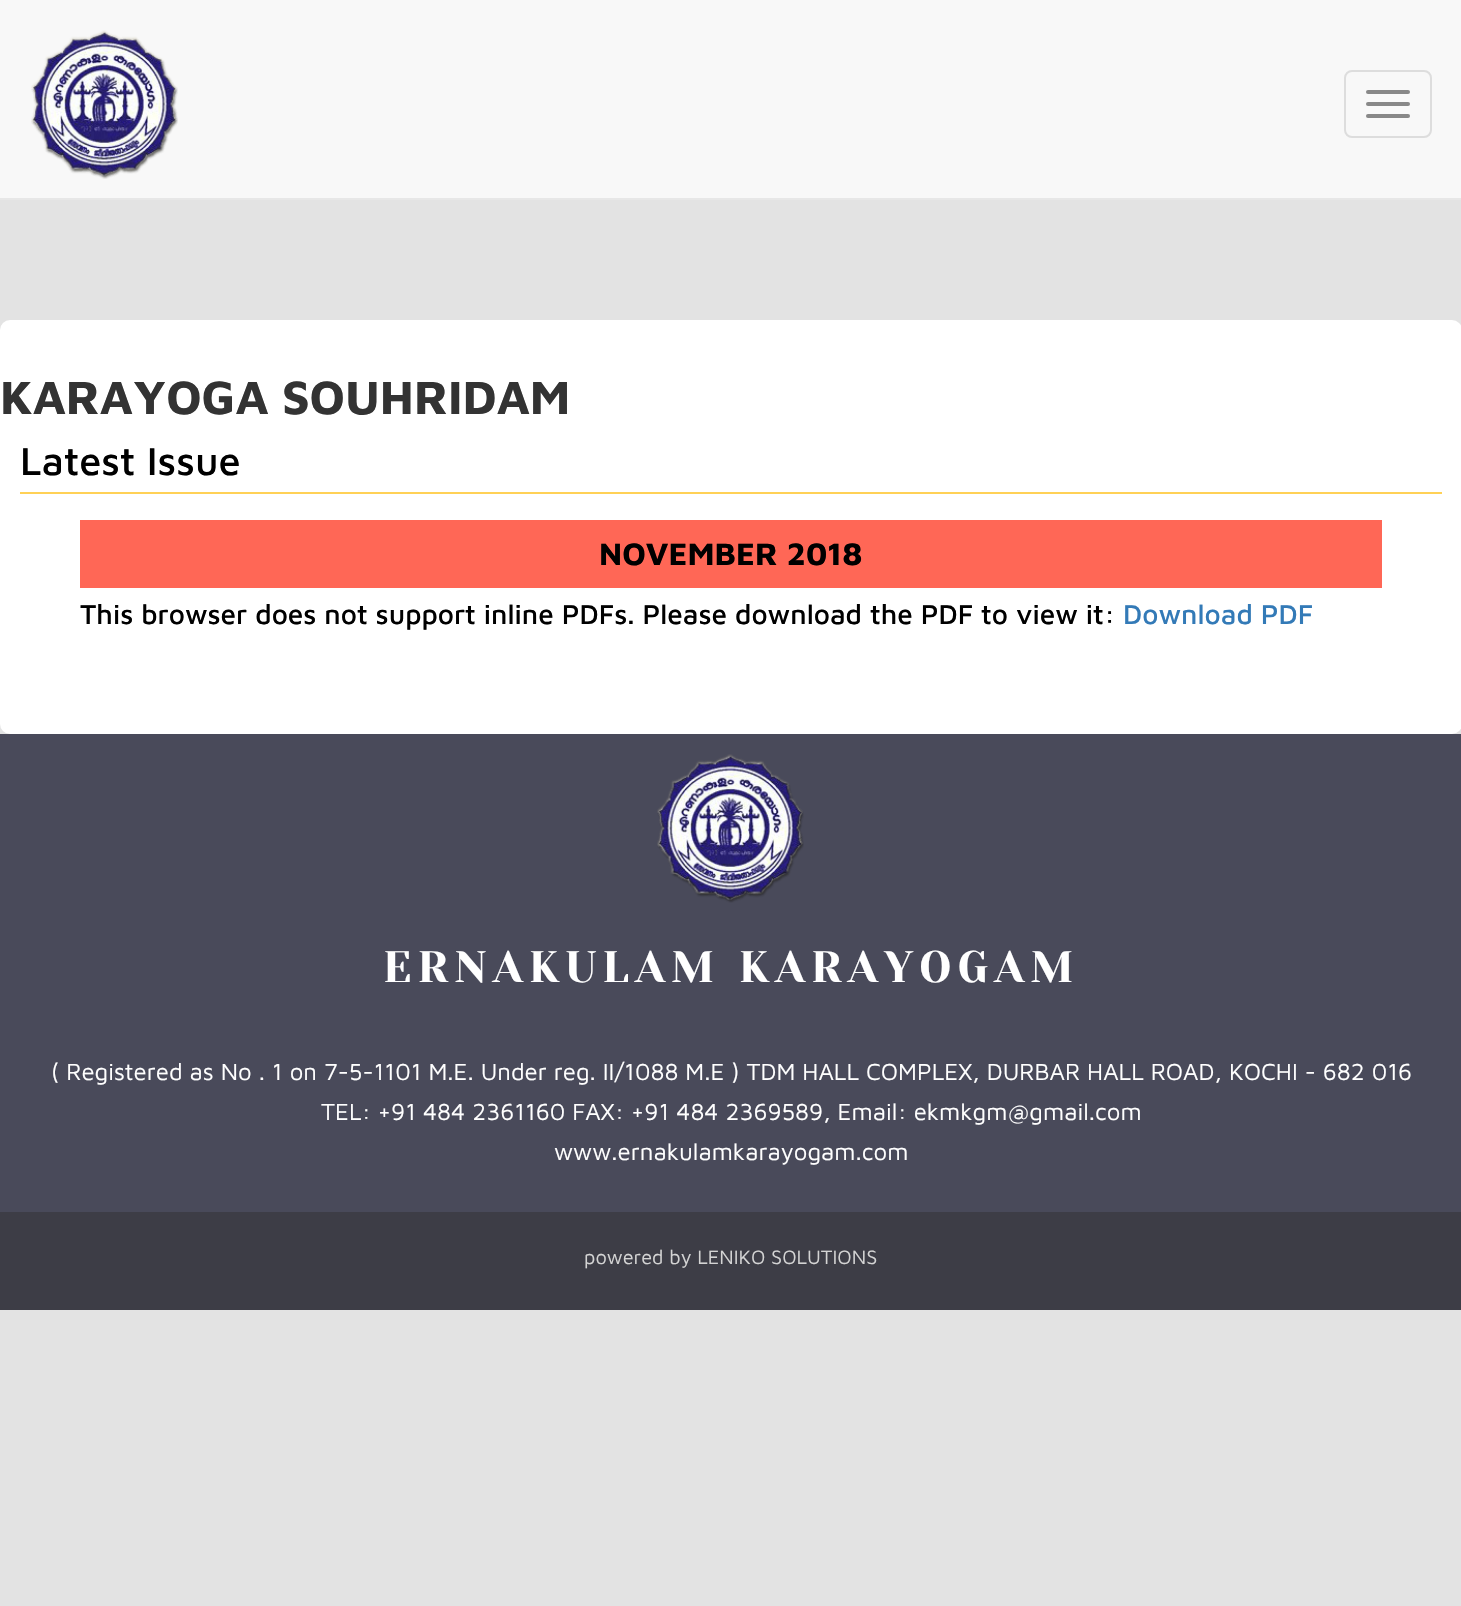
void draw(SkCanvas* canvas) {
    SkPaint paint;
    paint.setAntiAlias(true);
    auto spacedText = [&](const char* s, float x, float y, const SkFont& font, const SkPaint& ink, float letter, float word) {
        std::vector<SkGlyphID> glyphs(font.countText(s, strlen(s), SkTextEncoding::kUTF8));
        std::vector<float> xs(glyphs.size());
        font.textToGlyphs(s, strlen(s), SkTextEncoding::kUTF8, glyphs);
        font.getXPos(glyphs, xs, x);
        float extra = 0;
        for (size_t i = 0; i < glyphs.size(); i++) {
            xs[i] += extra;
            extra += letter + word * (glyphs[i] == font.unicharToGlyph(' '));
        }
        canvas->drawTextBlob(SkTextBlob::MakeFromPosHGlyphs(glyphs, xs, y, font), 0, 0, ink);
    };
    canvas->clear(0xFFE3E3E3);
    paint.setColor(0xFFF8F8F8);
    canvas->drawRect(SkRect::MakeXYWH(0, 0, 1461, 198), paint);
    paint.setColor(0xFFE7E7E7);
    canvas->drawRect(SkRect::MakeXYWH(0, 198, 1461, 2), paint);
    canvas->drawImageRect(SkImages::DeferredFromEncodedData(SkData::MakeFromFileName("img1.png")), SkRect::MakeXYWH(31, 30, 147, 149), SkSamplingOptions());
    paint.setStyle(SkPaint::kStroke_Style);
    paint.setStrokeWidth(2);
    paint.setColor(0xFFDDDDDD);
    canvas->drawRoundRect(SkRect::MakeXYWH(1345, 71, 86, 66), 7, 7, paint);
    paint.setStyle(SkPaint::kFill_Style);
    paint.setColor(0xFF888888);
    canvas->drawRoundRect(SkRect::MakeXYWH(1366, 90, 44, 4), 2, 2, paint);
    canvas->drawRoundRect(SkRect::MakeXYWH(1366, 102, 44, 4), 2, 2, paint);
    canvas->drawRoundRect(SkRect::MakeXYWH(1366, 114, 44, 4), 2, 2, paint);
    paint.setColor(0xFFFFFFFF);
    canvas->drawRoundRect(SkRect::MakeXYWH(0, 320, 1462, 414), 10, 10, paint);
    SkFont font1(fontMgr->matchFamilyStyle("Maven Pro", SkFontStyle::Bold()), 48);
    font1.setSubpixel(true);
    paint.setColor(0xFF333333);
    canvas->drawString("KARAYOGA SOUHRIDAM", 0, 414, font1, paint);
    paint.setColor(0xFFFFD156);
    canvas->drawRect(SkRect::MakeXYWH(20, 492, 1422, 2), paint);
    SkFont font2(fontMgr->matchFamilyStyle("Maven Pro", SkFontStyle(500, SkFontStyle::kNormal_Width, SkFontStyle::kUpright_Slant)), 40);
    font2.setSubpixel(true);
    paint.setColor(0xFF000000);
    canvas->drawString("Latest Issue", 20, 475, font2, paint);
    paint.setColor(0xFFFF6756);
    canvas->drawRect(SkRect::MakeXYWH(80, 520, 1302, 68), paint);
    SkFont font3(fontMgr->matchFamilyStyle("Maven Pro", SkFontStyle::Bold()), 32);
    font3.setSubpixel(true);
    paint.setColor(0xFF000000);
    canvas->drawString("NOVEMBER 2018", 599, 565, font3, paint);
    SkFont font4(fontMgr->matchFamilyStyle("Maven Pro", SkFontStyle(500, SkFontStyle::kNormal_Width, SkFontStyle::kUpright_Slant)), 28);
    font4.setSubpixel(true);
    canvas->drawString("This browser does not support inline PDFs. Please download the PDF to view it:", 80, 624, font4, paint);
    paint.setColor(0xFF337AB7);
    canvas->drawString("Download PDF", 1123, 624, font4, paint);
    paint.setColor(0xFF494A5A);
    canvas->drawRect(SkRect::MakeXYWH(0, 734, 1461, 478), paint);
    canvas->drawImageRect(SkImages::DeferredFromEncodedData(SkData::MakeFromFileName("img2.png")), SkRect::MakeXYWH(657, 754, 147, 149), SkSamplingOptions());
    SkFont font5(fontMgr->matchFamilyStyle("Yeseva One", SkFontStyle::Normal()), 44);
    font5.setSubpixel(true);
    paint.setColor(0xFFFFFFFF);
    spacedText("ERNAKULAM KARAYOGAM", 383, 982, font5, paint, 6, 0);
    SkFont font6(fontMgr->matchFamilyStyle("Maven Pro", SkFontStyle::Normal()), 24);
    font6.setSubpixel(true);
    canvas->drawString("( Registered as No . 1 on 7-5-1101 M.E. Under reg. II/1088 M.E ) TDM HALL COMPLEX, DURBAR HALL ROAD, KOCHI - 682 016", 51, 1080, font6, paint);
    canvas->drawString("TEL: +91 484 2361160 FAX: +91 484 2369589, Email: ekmkgm@gmail.com", 321, 1120, font6, paint);
    canvas->drawString("www.ernakulamkarayogam.com", 554, 1160, font6, paint);
    paint.setColor(0xFF3D3D46);
    canvas->drawRect(SkRect::MakeXYWH(0, 1212, 1461, 98), paint);
    SkFont font7(fontMgr->matchFamilyStyle("Maven Pro", SkFontStyle::Normal()), 20);
    font7.setSubpixel(true);
    paint.setColor(0xFFD4D4D4);
    canvas->drawString("powered by LENIKO SOLUTIONS", 584, 1264, font7, paint);
}
